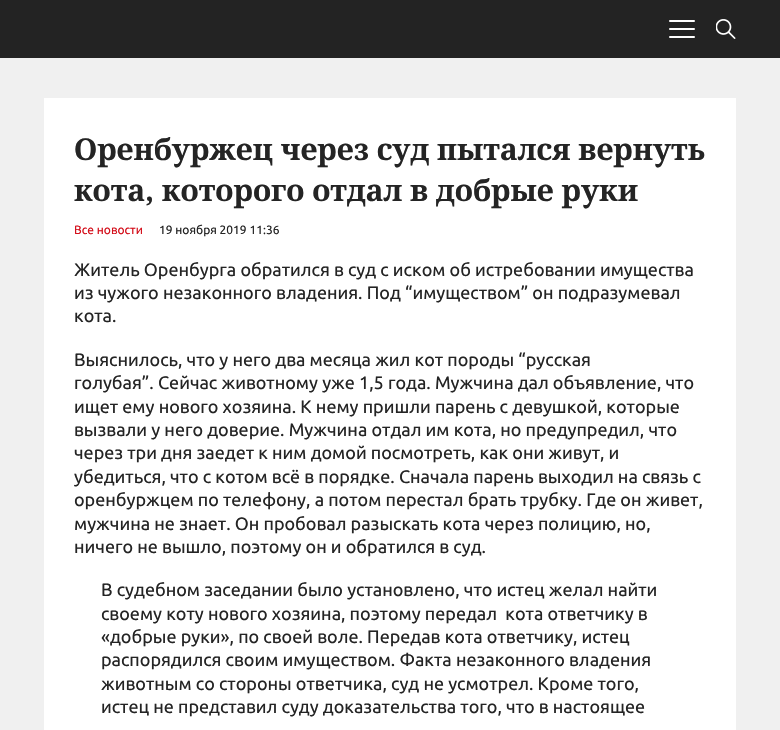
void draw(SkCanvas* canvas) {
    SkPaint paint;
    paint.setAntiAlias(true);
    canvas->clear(0xFFF0F0F0);
    paint.setColor(0xFF232323);
    canvas->drawRect(SkRect::MakeXYWH(0, 0, 780, 58), paint);
    paint.setColor(0xFFFFFFFF);
    canvas->drawRoundRect(SkRect::MakeXYWH(669, 28, 26, 2), 1, 1, paint);
    canvas->drawRoundRect(SkRect::MakeXYWH(669, 20, 26, 2), 1, 1, paint);
    canvas->drawRoundRect(SkRect::MakeXYWH(669, 36, 26, 2), 1, 1, paint);
    canvas->drawImageRect(SkImages::DeferredFromEncodedData(SkData::MakeFromFileName("img1.png")), SkRect::MakeXYWH(716, 19, 20, 20), SkSamplingOptions());
    canvas->drawRect(SkRect::MakeXYWH(44, 98, 692, 632), paint);
    SkFont font1(fontMgr->matchFamilyStyle("Noto Serif", SkFontStyle::Bold()), 30);
    font1.setSubpixel(true);
    paint.setColor(0xFF242424);
    canvas->drawString("Оренбуржец через суд пытался вернуть", 74, 160, font1, paint);
    canvas->drawString("кота, которого отдал в добрые руки", 74, 201, font1, paint);
    SkFont font2(fontMgr->matchFamilyStyle("Ubuntu", SkFontStyle::Normal()), 12);
    font2.setSubpixel(true);
    paint.setColor(0xFFD40F1B);
    canvas->drawString("Все новости", 74, 234, font2, paint);
    paint.setColor(0xFF242424);
    canvas->drawString("19 ноября 2019 11:36", 159, 234, font2, paint);
    SkFont font3(fontMgr->matchFamilyStyle("Ubuntu", SkFontStyle::Normal()), 18);
    font3.setSubpixel(true);
    canvas->drawString("Житель Оренбурга обратился в суд с иском об истребовании имущества", 74, 276, font3, paint);
    canvas->drawString("из чужого незаконного владения. Под “имуществом” он подразумевал", 74, 299, font3, paint);
    canvas->drawString("кота.", 74, 322, font3, paint);
    canvas->drawString("Выяснилось, что у него два месяца жил кот породы “русская", 74, 366, font3, paint);
    canvas->drawString("голубая”. Сейчас животному уже 1,5 года. Мужчина дал объявление, что", 74, 389, font3, paint);
    canvas->drawString("ищет ему нового хозяина. К нему пришли парень с девушкой, которые", 74, 413, font3, paint);
    canvas->drawString("вызвали у него доверие. Мужчина отдал им кота, но предупредил, что", 74, 436, font3, paint);
    canvas->drawString("через три дня заедет к ним домой посмотреть, как они живут, и", 74, 459, font3, paint);
    canvas->drawString("убедиться, что с котом всё в порядке. Сначала парень выходил на связь с", 74, 483, font3, paint);
    canvas->drawString("оренбуржцем по телефону, а потом перестал брать трубку. Где он живет,", 74, 506, font3, paint);
    canvas->drawString("мужчина не знает. Он пробовал разыскать кота через полицию, но,", 74, 530, font3, paint);
    canvas->drawString("ничего не вышло, поэтому он и обратился в суд.", 74, 553, font3, paint);
    canvas->drawString("В судебном заседании было установлено, что истец желал найти", 101, 596, font3, paint);
    canvas->drawString("своему коту нового хозяина, поэтому передал  кота ответчику в", 101, 620, font3, paint);
    canvas->drawString("«добрые руки», по своей воле. Передав кота ответчику, истец", 101, 643, font3, paint);
    canvas->drawString("распорядился своим имуществом. Факта незаконного владения", 101, 666, font3, paint);
    canvas->drawString("животным со стороны ответчика, суд не усмотрел. Кроме того,", 101, 690, font3, paint);
    canvas->drawString("истец не представил суду доказательства того, что в настоящее", 101, 713, font3, paint);
}
